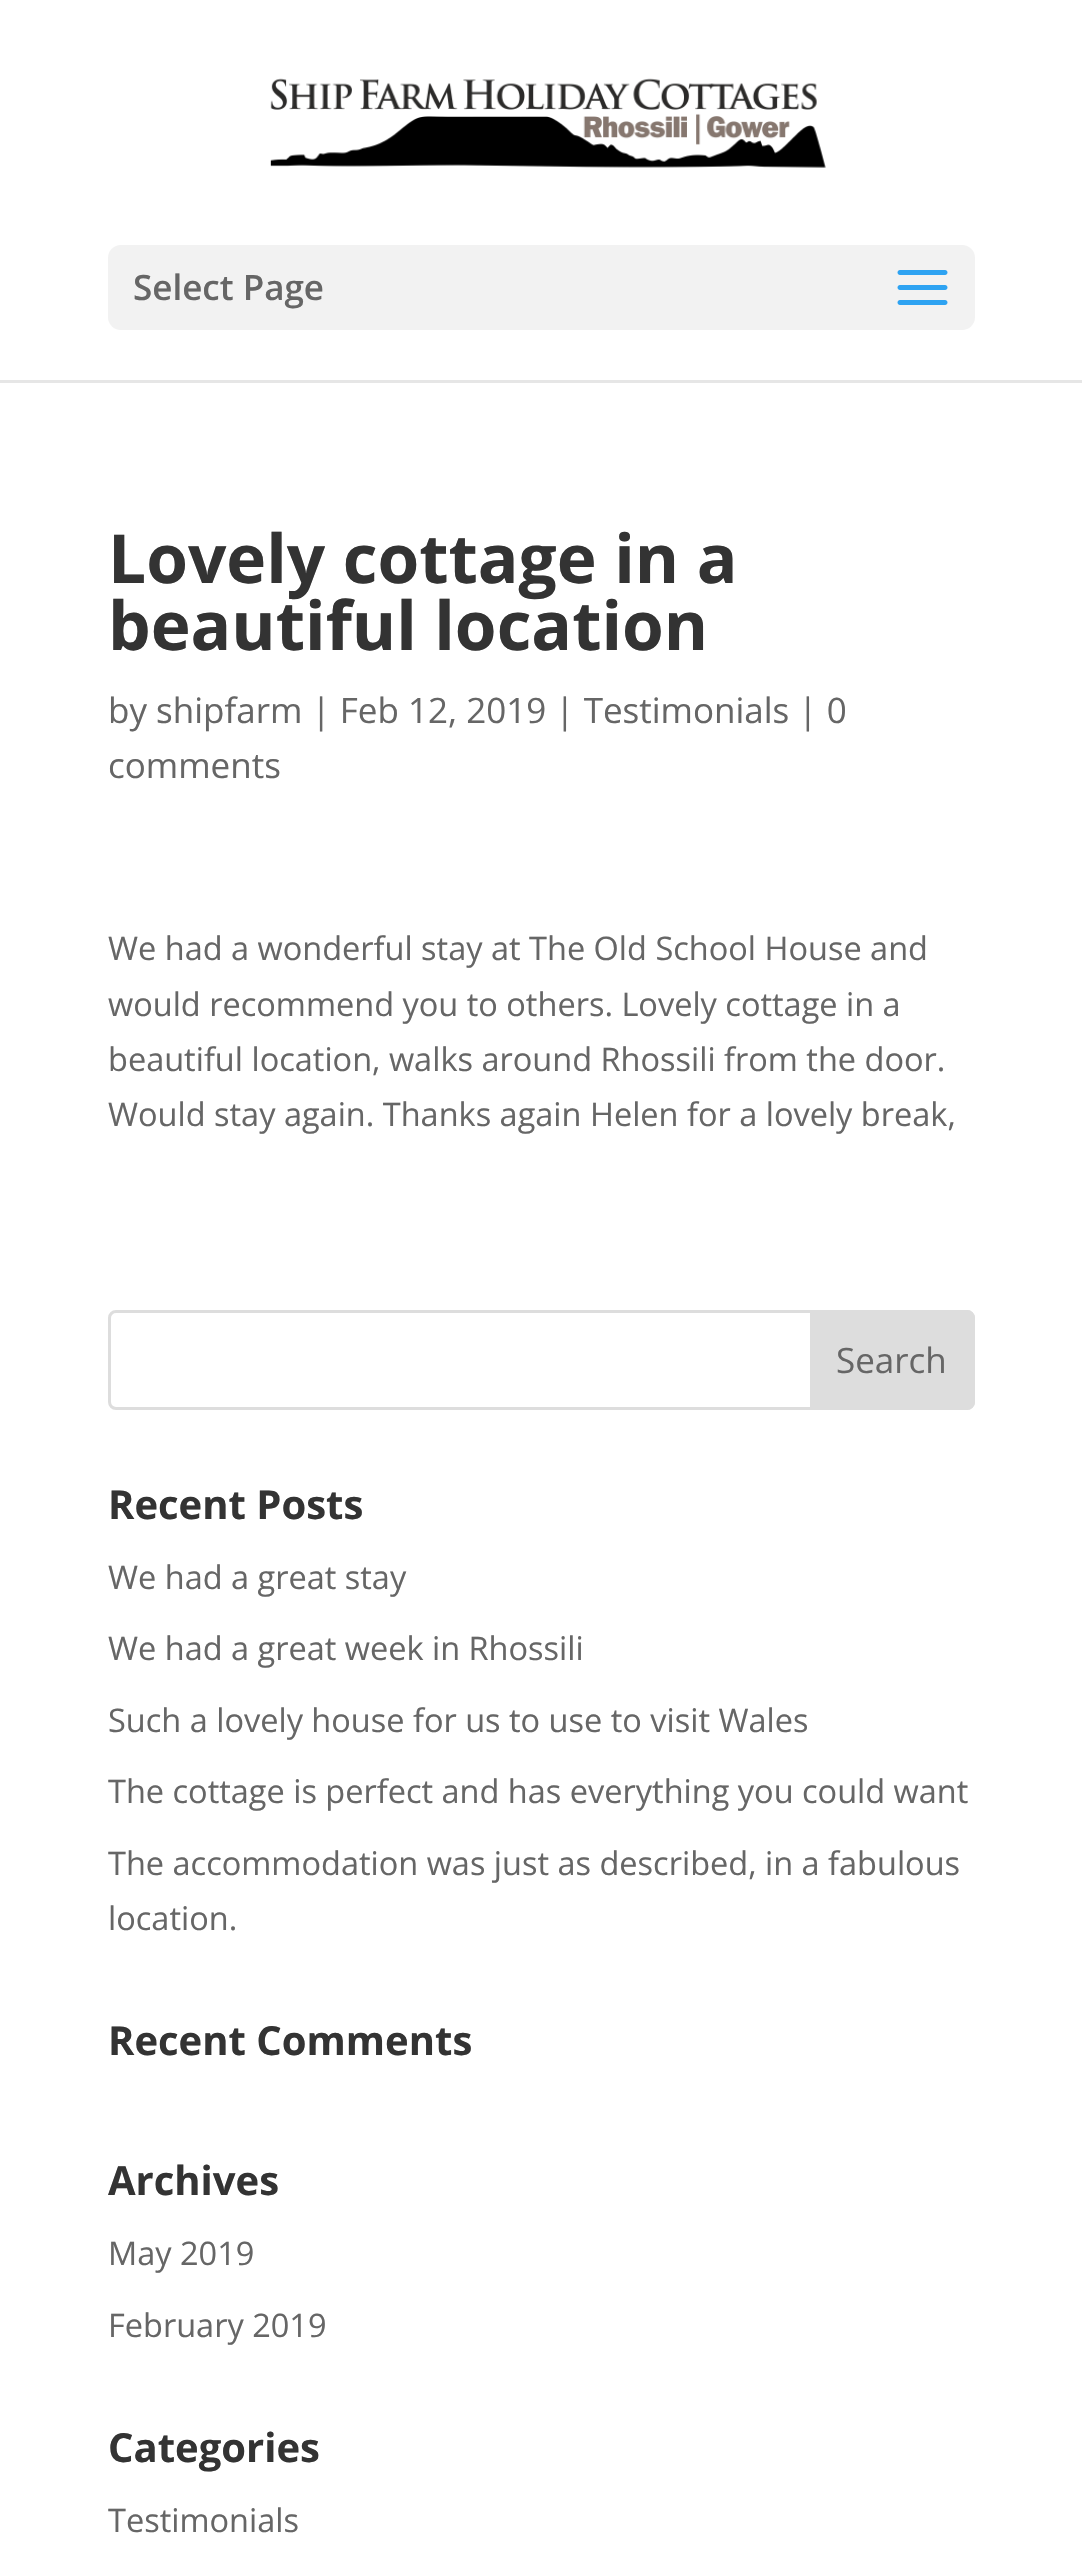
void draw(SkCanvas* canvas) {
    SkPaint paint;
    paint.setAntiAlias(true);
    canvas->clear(0xFFFFFFFF);
    paint.setColor(0xFFE6E6E6);
    canvas->drawPath(SkPathBuilder().moveTo(0, 380).lineTo(0, 383).lineTo(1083, 383).lineTo(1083, -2).lineTo(1082, -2).lineTo(1082, 380).close().detach(), paint);
    canvas->drawImageRect(SkImages::DeferredFromEncodedData(SkData::MakeFromFileName("img1.png")), SkRect::MakeXYWH(270, 78, 556, 90), SkSamplingOptions());
    paint.setColor(0xFFF2F2F2);
    canvas->drawRoundRect(SkRect::MakeXYWH(108, 245, 867, 85), 13, 13, paint);
    SkFont font1(fontMgr->matchFamilyStyle("Open Sans", SkFontStyle(600, SkFontStyle::kNormal_Width, SkFontStyle::kUpright_Slant)), 35);
    font1.setSubpixel(true);
    paint.setColor(0xFF666666);
    canvas->drawString("Select Page", 133, 300, font1, paint);
    canvas->drawImageRect(SkImages::DeferredFromEncodedData(SkData::MakeFromFileName("img2.png")), SkRect::MakeXYWH(897, 270, 51, 35), SkSamplingOptions());
    SkFont font2(fontMgr->matchFamilyStyle("Open Sans", SkFontStyle::Bold()), 67.5f);
    font2.setSubpixel(true);
    paint.setColor(0xFF333333);
    canvas->drawString("Lovely cottage in a", 108, 583, font2, paint);
    canvas->drawString("beautiful location", 108, 650, font2, paint);
    SkFont font3(fontMgr->matchFamilyStyle("Open Sans", SkFontStyle::Normal()), 35);
    font3.setSubpixel(true);
    paint.setColor(0xFF666666);
    canvas->drawString("by shipfarm | Feb 12, 2019 | Testimonials | 0", 108, 723, font3, paint);
    canvas->drawString("comments", 108, 778, font3, paint);
    SkFont font4(fontMgr->matchFamilyStyle("Open Sans", SkFontStyle::Normal()), 32.5f);
    font4.setSubpixel(true);
    canvas->drawString("We had a wonderful stay at The Old School House and", 108, 960, font4, paint);
    canvas->drawString("would recommend you to others. Lovely cottage in a", 108, 1016, font4, paint);
    canvas->drawString("beautiful location, walks around Rhossili from the door.", 108, 1071, font4, paint);
    canvas->drawString("Would stay again. Thanks again Helen for a lovely break,", 108, 1126, font4, paint);
    paint.setStyle(SkPaint::kStroke_Style);
    paint.setStrokeWidth(3);
    paint.setColor(0xFFDDDDDD);
    canvas->drawRoundRect(SkRect::MakeXYWH(109.5f, 1311.5f, 864, 97), 6.5f, 6.5f, paint);
    paint.setStyle(SkPaint::kFill_Style);
    canvas->drawPath(SkPathBuilder().moveTo(811.5f, 1311.5f).lineTo(967, 1311.5f).cubicTo(970.5f, 1311.5f, 973.5f, 1314.5f, 973.5f, 1318).lineTo(973.5f, 1402).cubicTo(973.5f, 1405.5f, 970.5f, 1408.5f, 967, 1408.5f).lineTo(811.5f, 1408.5f).close().detach(), paint);
    paint.setStyle(SkPaint::kStroke_Style);
    canvas->drawPath(SkPathBuilder().moveTo(811.5f, 1311.5f).lineTo(967, 1311.5f).cubicTo(970.5f, 1311.5f, 973.5f, 1314.5f, 973.5f, 1318).lineTo(973.5f, 1402).cubicTo(973.5f, 1405.5f, 970.5f, 1408.5f, 967, 1408.5f).lineTo(811.5f, 1408.5f).close().detach(), paint);
    paint.setStyle(SkPaint::kFill_Style);
    paint.setColor(0xFF666666);
    canvas->drawString("Search", 836, 1373, font3, paint);
    SkFont font5(fontMgr->matchFamilyStyle("Open Sans", SkFontStyle::Bold()), 40);
    font5.setSubpixel(true);
    paint.setColor(0xFF333333);
    canvas->drawString("Recent Posts", 108, 1519, font5, paint);
    paint.setColor(0xFF666666);
    canvas->drawString("We had a great stay", 108, 1589, font4, paint);
    canvas->drawString("We had a great week in Rhossili", 108, 1660, font4, paint);
    canvas->drawString("Such a lovely house for us to use to visit Wales", 108, 1732, font4, paint);
    canvas->drawString("The cottage is perfect and has everything you could want", 108, 1803, font4, paint);
    canvas->drawString("The accommodation was just as described, in a fabulous", 108, 1875, font4, paint);
    canvas->drawString("location.", 108, 1930, font4, paint);
    paint.setColor(0xFF333333);
    canvas->drawString("Recent Comments", 108, 2055, font5, paint);
    canvas->drawString("Archives", 108, 2195, font5, paint);
    paint.setColor(0xFF666666);
    canvas->drawString("May 2019", 108, 2265, font4, paint);
    canvas->drawString("February 2019", 108, 2337, font4, paint);
    paint.setColor(0xFF333333);
    canvas->drawString("Categories", 108, 2462, font5, paint);
    paint.setColor(0xFF666666);
    canvas->drawString("Testimonials", 108, 2532, font4, paint);
}
